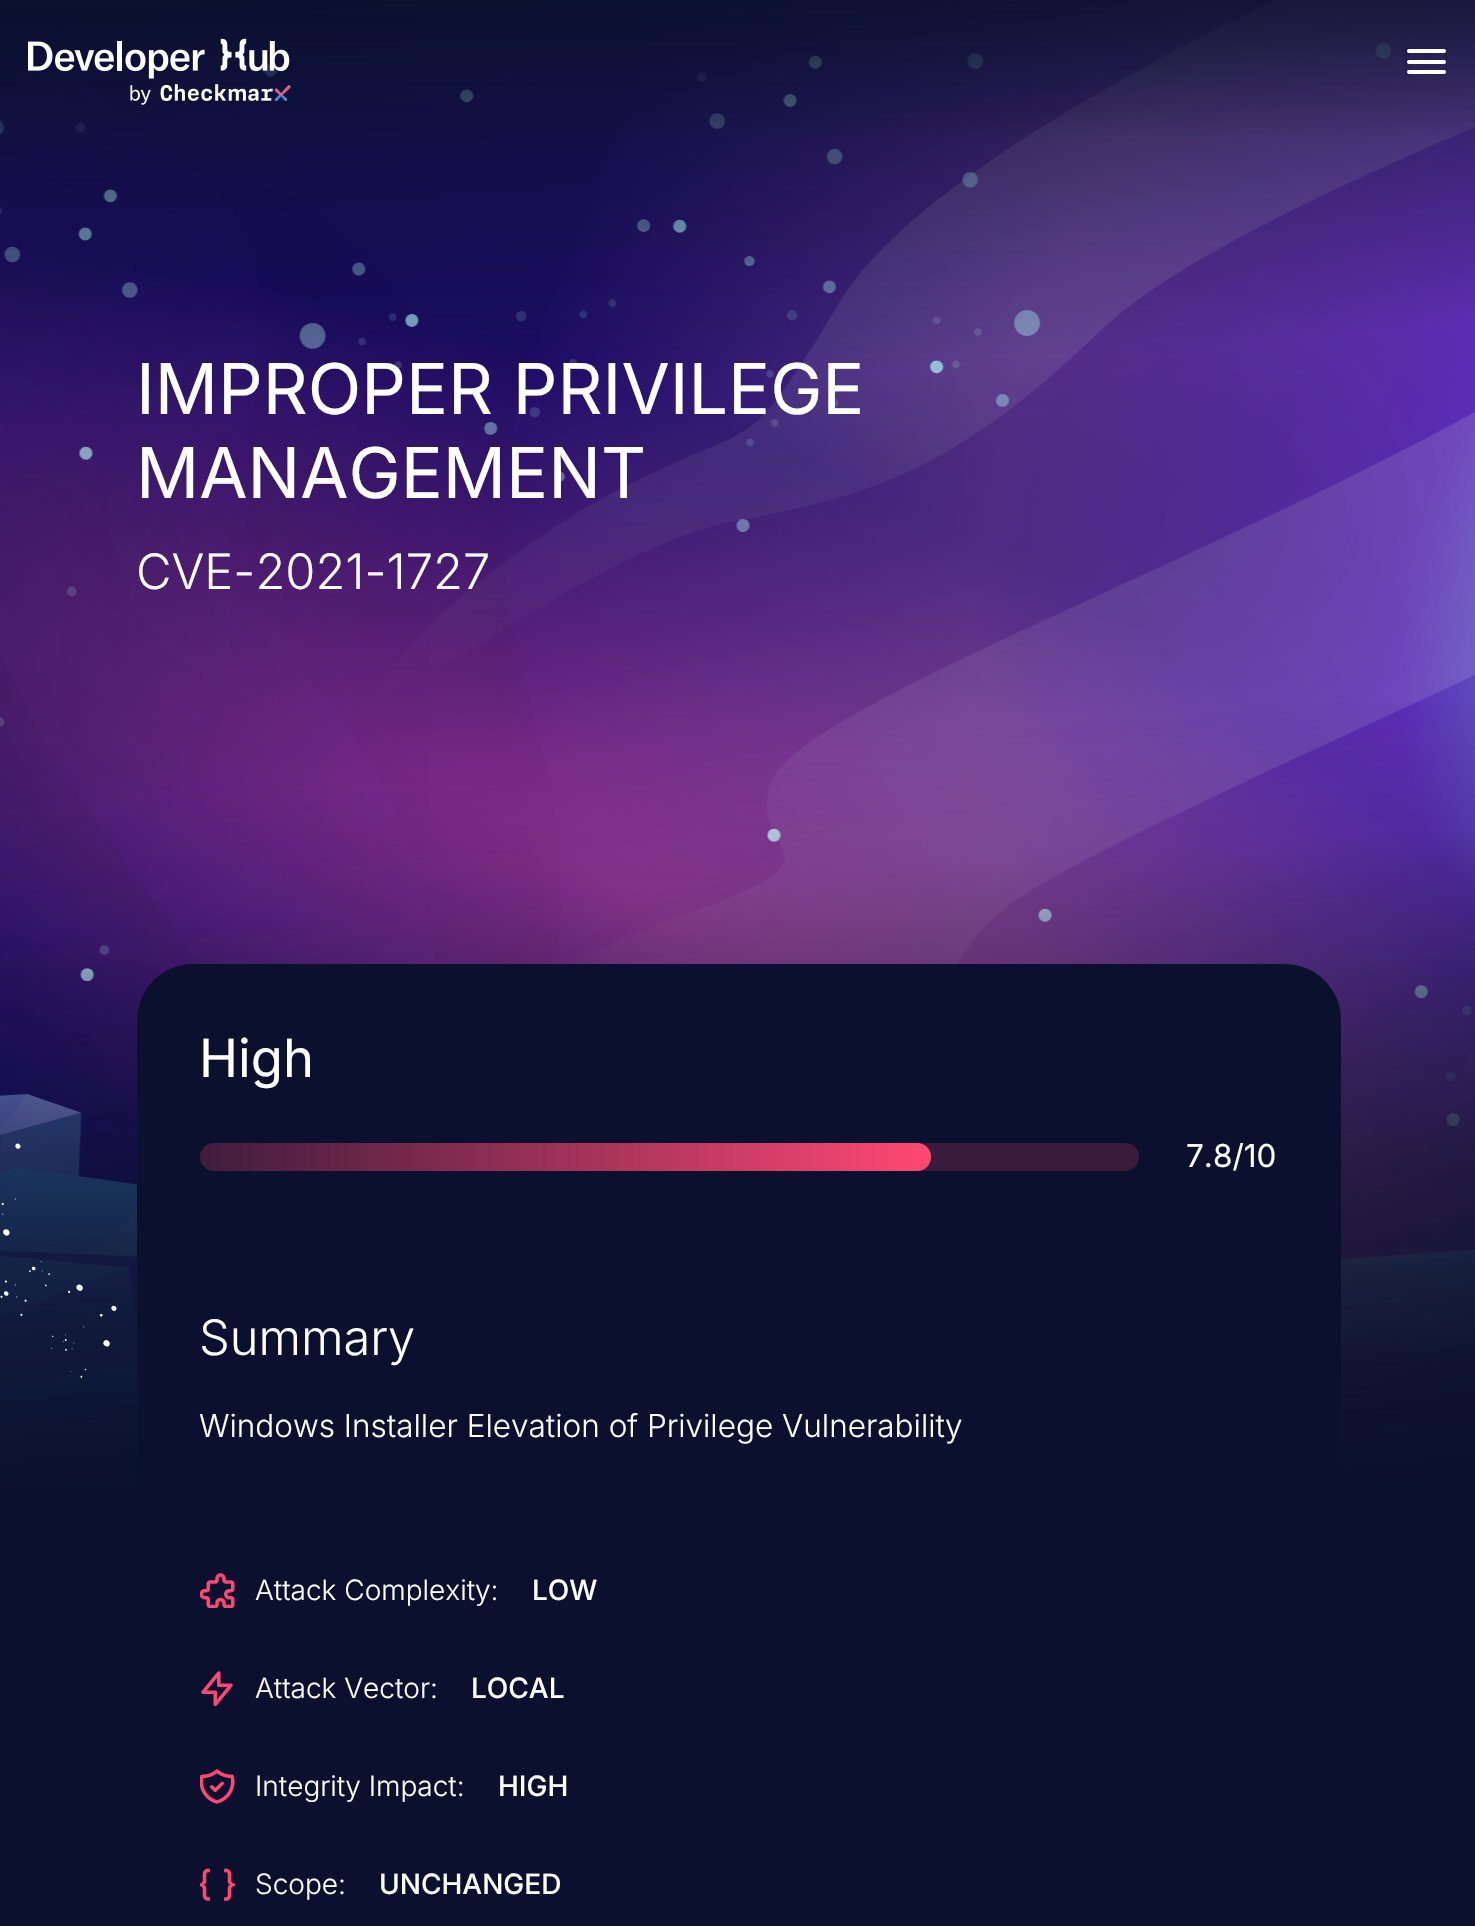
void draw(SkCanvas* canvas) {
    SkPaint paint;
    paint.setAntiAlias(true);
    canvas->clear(0xFF0A102D);
    canvas->drawImageRect(SkImages::DeferredFromEncodedData(SkData::MakeFromFileName("img2.png")), SkRect::MakeXYWH(0, 0, 1475, 1488), SkSamplingOptions());
    {
        const SkColor colors[] = {0x000A102D, 0x000A102D, 0xFF0A102D};
        const float stops[] = {0, 0.25f, 1};
        const SkPoint ends[] = {{683, 437}, {792, 1682}};
        paint.setShader(SkGradientShader::MakeLinear(ends, colors, stops, 3, SkTileMode::kClamp));
        paint.setAlpha(255);
    }
    canvas->drawRect(SkRect::MakeXYWH(0, 702, 1475, 786), paint);
    paint.setShader(nullptr);
    paint.setColor(0x330A102D);
    paint.setMaskFilter(SkMaskFilter::MakeBlur(kNormal_SkBlurStyle, 150.5f));
    canvas->drawRect(SkRect::MakeXYWH(137, 348, 1260, 322), paint);
    paint.setMaskFilter(nullptr);
    {
        const SkColor colors[] = {0x800A102D, 0x000A102D};
        const float stops[] = {0, 1};
        const SkPoint ends[] = {{738, 0}, {738, 144}};
        paint.setShader(SkGradientShader::MakeLinear(ends, colors, stops, 2, SkTileMode::kClamp));
        paint.setAlpha(255);
    }
    canvas->drawRect(SkRect::MakeXYWH(0, 0, 1475, 136), paint);
    canvas->drawImageRect(SkImages::DeferredFromEncodedData(SkData::MakeFromFileName("img1.png")), SkRect::MakeXYWH(28, 38, 263, 67), SkSamplingOptions());
    paint.setStyle(SkPaint::kStroke_Style);
    paint.setStrokeWidth(2);
    paint.setShader(nullptr);
    paint.setColor(0x1A000000);
    canvas->drawRect(SkRect::MakeXYWH(1406, 48, 40, 26), paint);
    paint.setStyle(SkPaint::kFill_Style);
    paint.setColor(0xFFFFFFFF);
    canvas->drawRoundRect(SkRect::MakeXYWH(1407, 49, 39, 4), 2, 2, paint);
    canvas->drawRoundRect(SkRect::MakeXYWH(1407, 60, 39, 4), 2, 2, paint);
    canvas->drawRoundRect(SkRect::MakeXYWH(1407, 70, 39, 4), 2, 2, paint);
    SkFont font1(fontMgr->matchFamilyStyle("Inter", SkFontStyle::Normal()), 70);
    font1.setSubpixel(true);
    canvas->drawString("IMPROPER PRIVILEGE", 136, 414, font1, paint);
    canvas->drawString("MANAGEMENT", 136, 498, font1, paint);
    SkFont font2(fontMgr->matchFamilyStyle("Inter", SkFontStyle(300, SkFontStyle::kNormal_Width, SkFontStyle::kUpright_Slant)), 48.75f);
    font2.setSubpixel(true);
    canvas->drawString("CVE-2021-1727", 136, 589, font2, paint);
    canvas->drawImageRect(SkImages::DeferredFromEncodedData(SkData::MakeFromFileName("img3.png")), SkRect::MakeXYWH(0, 1143, 117, 235), SkSamplingOptions());
    paint.setColor(0xFF0A102D);
    canvas->drawRoundRect(SkRect::MakeXYWH(137, 964, 1204, 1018), 56, 56, paint);
    SkFont font3(fontMgr->matchFamilyStyle("Inter", SkFontStyle::Normal()), 52.5f);
    font3.setSubpixel(true);
    paint.setColor(0xFFFFFFFF);
    canvas->drawString("High", 199, 1077, font3, paint);
    paint.setColor(0xFF3B1B3B);
    canvas->drawRoundRect(SkRect::MakeXYWH(200, 1143, 939, 28), 14, 14, paint);
    {
        const SkColor colors[] = {0xFFFF4773, 0x00FF4773};
        const float stops[] = {0, 1};
        const SkPoint ends[] = {{931, 1157}, {185, 1157}};
        paint.setShader(SkGradientShader::MakeLinear(ends, colors, stops, 2, SkTileMode::kClamp));
        paint.setAlpha(255);
    }
    canvas->drawRoundRect(SkRect::MakeXYWH(200, 1143, 731, 28), 14, 14, paint);
    SkFont font4(fontMgr->matchFamilyStyle("Inter", SkFontStyle::Normal()), 31.5f);
    font4.setSubpixel(true);
    paint.setShader(nullptr);
    paint.setColor(0xFFFFFFFF);
    canvas->drawString("7.8/10", 1186, 1167, font4, paint);
    canvas->drawString("Summary", 199, 1355, font2, paint);
    SkFont font5(fontMgr->matchFamilyStyle("Inter", SkFontStyle(300, SkFontStyle::kNormal_Width, SkFontStyle::kUpright_Slant)), 31.5f);
    font5.setSubpixel(true);
    canvas->drawString("Windows Installer Elevation of Privilege Vulnerability", 199, 1437, font5, paint);
    canvas->drawImageRect(SkImages::DeferredFromEncodedData(SkData::MakeFromFileName("img4.png")), SkRect::MakeXYWH(200, 1573, 35, 35), SkSamplingOptions());
    SkFont font6(fontMgr->matchFamilyStyle("Inter", SkFontStyle(300, SkFontStyle::kNormal_Width, SkFontStyle::kUpright_Slant)), 28);
    font6.setSubpixel(true);
    canvas->drawString("Attack Complexity:", 255, 1600, font6, paint);
    SkFont font7(fontMgr->matchFamilyStyle("Inter", SkFontStyle(500, SkFontStyle::kNormal_Width, SkFontStyle::kUpright_Slant)), 28);
    font7.setSubpixel(true);
    canvas->drawString("LOW", 532, 1600, font7, paint);
    canvas->drawImageRect(SkImages::DeferredFromEncodedData(SkData::MakeFromFileName("img5.png")), SkRect::MakeXYWH(201, 1671, 32, 35), SkSamplingOptions());
    canvas->drawString("Attack Vector:", 255, 1698, font6, paint);
    canvas->drawString("LOCAL", 471, 1698, font7, paint);
    canvas->drawImageRect(SkImages::DeferredFromEncodedData(SkData::MakeFromFileName("img6.png")), SkRect::MakeXYWH(200, 1769, 35, 35), SkSamplingOptions());
    canvas->drawString("Integrity Impact:", 255, 1796, font6, paint);
    canvas->drawString("HIGH", 498, 1796, font7, paint);
    canvas->drawImageRect(SkImages::DeferredFromEncodedData(SkData::MakeFromFileName("img7.png")), SkRect::MakeXYWH(200, 1868, 35, 33), SkSamplingOptions());
    canvas->drawString("Scope:", 255, 1894, font6, paint);
    canvas->drawString("UNCHANGED", 379, 1894, font7, paint);
}
